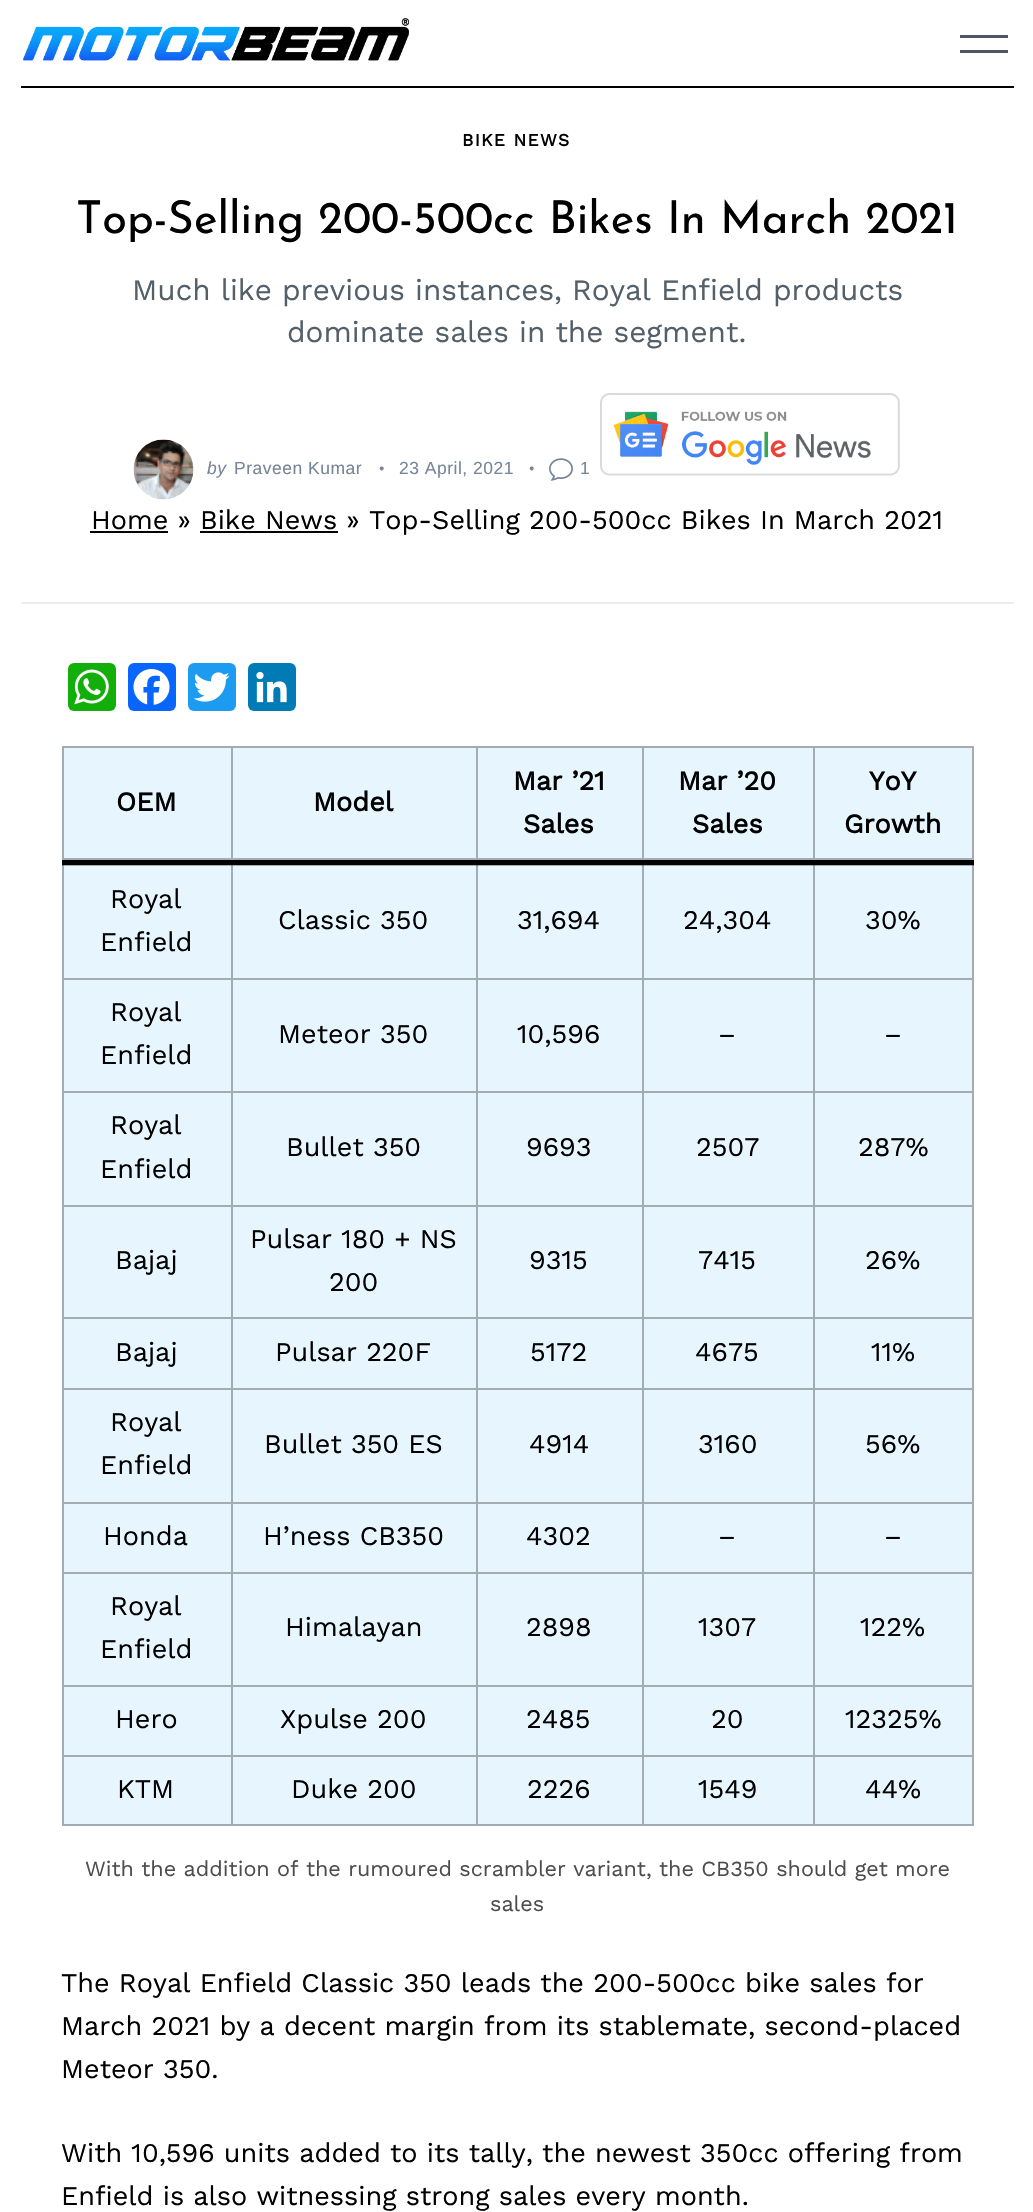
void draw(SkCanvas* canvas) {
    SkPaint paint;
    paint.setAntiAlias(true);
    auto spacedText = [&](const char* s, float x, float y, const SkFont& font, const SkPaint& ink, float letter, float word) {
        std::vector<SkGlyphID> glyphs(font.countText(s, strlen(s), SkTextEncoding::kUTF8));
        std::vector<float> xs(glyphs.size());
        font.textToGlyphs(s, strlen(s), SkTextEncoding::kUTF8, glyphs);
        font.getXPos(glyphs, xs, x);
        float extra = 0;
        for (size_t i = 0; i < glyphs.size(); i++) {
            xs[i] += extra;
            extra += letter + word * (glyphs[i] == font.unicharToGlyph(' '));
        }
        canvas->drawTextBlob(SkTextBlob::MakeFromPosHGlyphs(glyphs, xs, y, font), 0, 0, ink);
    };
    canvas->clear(0xFFFFFFFF);
    canvas->drawImageRect(SkImages::DeferredFromEncodedData(SkData::MakeFromFileName("img1.png")), SkRect::MakeXYWH(23, 18, 386, 43), SkSamplingOptions());
    paint.setColor(0xFF505668);
    canvas->drawRect(SkRect::MakeXYWH(960, 35, 48, 3), paint);
    canvas->drawRect(SkRect::MakeXYWH(960, 50, 48, 3), paint);
    paint.setColor(0xFF000000);
    canvas->drawRect(SkRect::MakeXYWH(21, 86, 993, 2), paint);
    SkFont font1(fontMgr->matchFamilyStyle("Work Sans", SkFontStyle::Bold()), 17.5f);
    font1.setSubpixel(true);
    spacedText("BIKE NEWS", 462, 146, font1, paint, 1.25f, 0);
    SkFont font2(fontMgr->matchFamilyStyle("Josefin Sans", SkFontStyle::Normal()), 45.25f);
    font2.setSubpixel(true);
    canvas->drawString("Top-Selling 200-500cc Bikes In March 2021", 76, 233, font2, paint);
    SkFont font3(fontMgr->matchFamilyStyle("Work Sans", SkFontStyle::Normal()), 29.7f);
    font3.setSubpixel(true);
    paint.setColor(0xFF535F69);
    canvas->drawString("Much like previous instances, Royal Enfield products", 132, 300, font3, paint);
    canvas->drawString("dominate sales in the segment.", 287, 342, font3, paint);
    canvas->drawImageRect(SkImages::DeferredFromEncodedData(SkData::MakeFromFileName("img2.png")), SkRect::MakeXYWH(133, 439, 61, 61), SkSamplingOptions());
    SkFont font4(fontMgr->matchFamilyStyle("Liberation Sans", SkFontStyle::Italic()), 17.5f);
    font4.setSubpixel(true);
    paint.setColor(0xFF778599);
    spacedText("by", 207, 474, font4, paint, 0.5f, 0);
    SkFont font5(fontMgr->matchFamilyStyle("Liberation Sans", SkFontStyle::Normal()), 17.5f);
    font5.setSubpixel(true);
    spacedText("Praveen Kumar", 234, 474, font5, paint, 0.5f, 0);
    SkFont font6(fontMgr->matchFamilyStyle("Liberation Sans", SkFontStyle::Normal()), 9);
    font6.setSubpixel(true);
    spacedText("●", 379, 471, font6, paint, 0.5f, 0);
    spacedText("23 April, 2021", 399, 474, font5, paint, 0.5f, 0);
    spacedText("●", 529, 471, font6, paint, 0.5f, 0);
    canvas->drawImageRect(SkImages::DeferredFromEncodedData(SkData::MakeFromFileName("img3.png")), SkRect::MakeXYWH(549, 458, 24, 23), SkSamplingOptions());
    spacedText("1", 580, 474, font5, paint, 0.5f, 0);
    canvas->drawImageRect(SkImages::DeferredFromEncodedData(SkData::MakeFromFileName("img4.png")), SkRect::MakeXYWH(600, 393, 300, 83), SkSamplingOptions());
    paint.setColor(0xFF000000);
    canvas->drawRect(SkRect::MakeXYWH(90, 531, 78, 2), paint);
    SkFont font7(fontMgr->matchFamilyStyle("Work Sans", SkFontStyle::Normal()), 27);
    font7.setSubpixel(true);
    canvas->drawString("Home » Bike News » Top-Selling 200-500cc Bikes In March 2021", 91, 529, font7, paint);
    canvas->drawRect(SkRect::MakeXYWH(200, 531, 138, 2), paint);
    paint.setColor(0xFFEDEDED);
    canvas->drawRect(SkRect::MakeXYWH(21, 602, 993, 2), paint);
    paint.setColor(0xFF12AF0A);
    canvas->drawRoundRect(SkRect::MakeXYWH(68, 663, 48, 48), 6, 6, paint);
    canvas->drawImageRect(SkImages::DeferredFromEncodedData(SkData::MakeFromFileName("img5.png")), SkRect::MakeXYWH(74, 669, 35, 36), SkSamplingOptions());
    paint.setColor(0xFF0866FF);
    canvas->drawRoundRect(SkRect::MakeXYWH(128, 663, 48, 48), 6, 6, paint);
    canvas->drawImageRect(SkImages::DeferredFromEncodedData(SkData::MakeFromFileName("img6.png")), SkRect::MakeXYWH(133, 669, 37, 36), SkSamplingOptions());
    paint.setColor(0xFF1D9BF0);
    canvas->drawRoundRect(SkRect::MakeXYWH(188, 663, 48, 48), 6, 6, paint);
    canvas->drawImageRect(SkImages::DeferredFromEncodedData(SkData::MakeFromFileName("img7.png")), SkRect::MakeXYWH(193, 672, 37, 30), SkSamplingOptions());
    paint.setColor(0xFF007BB5);
    canvas->drawRoundRect(SkRect::MakeXYWH(248, 663, 48, 48), 6, 6, paint);
    canvas->drawImageRect(SkImages::DeferredFromEncodedData(SkData::MakeFromFileName("img8.png")), SkRect::MakeXYWH(256, 671, 31, 32), SkSamplingOptions());
    paint.setColor(0xFFE7F5FE);
    canvas->drawRect(SkRect::MakeXYWH(64, 748, 908, 1076), paint);
    paint.setColor(0xFFA2ACB2);
    canvas->drawRect(SkRect::MakeXYWH(813, 864, 2, 114), paint);
    canvas->drawRect(SkRect::MakeXYWH(972, 864, 2, 114), paint);
    canvas->drawRect(SkRect::MakeXYWH(813, 865, 161, 1), paint);
    paint.setColor(0xFF71787D);
    canvas->drawRect(SkRect::MakeXYWH(813, 865, 2, 1), paint);
    canvas->drawRect(SkRect::MakeXYWH(972, 865, 2, 1), paint);
    paint.setColor(0xFFA2ACB2);
    canvas->drawRect(SkRect::MakeXYWH(642, 864, 2, 114), paint);
    canvas->drawRect(SkRect::MakeXYWH(642, 865, 171, 1), paint);
    paint.setColor(0xFF71787D);
    canvas->drawRect(SkRect::MakeXYWH(642, 865, 2, 1), paint);
    paint.setColor(0xFFA2ACB2);
    canvas->drawRect(SkRect::MakeXYWH(476, 864, 2, 114), paint);
    canvas->drawRect(SkRect::MakeXYWH(476, 865, 166, 1), paint);
    paint.setColor(0xFF71787D);
    canvas->drawRect(SkRect::MakeXYWH(476, 865, 2, 1), paint);
    paint.setColor(0xFFA2ACB2);
    canvas->drawRect(SkRect::MakeXYWH(231, 864, 2, 114), paint);
    canvas->drawRect(SkRect::MakeXYWH(231, 865, 245, 1), paint);
    paint.setColor(0xFF71787D);
    canvas->drawRect(SkRect::MakeXYWH(231, 865, 2, 1), paint);
    paint.setColor(0xFFA2ACB2);
    canvas->drawRect(SkRect::MakeXYWH(62, 864, 2, 114), paint);
    canvas->drawRect(SkRect::MakeXYWH(62, 865, 169, 1), paint);
    paint.setColor(0xFF71787D);
    canvas->drawRect(SkRect::MakeXYWH(62, 865, 2, 1), paint);
    paint.setColor(0xFF000000);
    canvas->drawRect(SkRect::MakeXYWH(62, 860, 912, 4), paint);
    canvas->drawRect(SkRect::MakeXYWH(62, 864, 912, 1), paint);
    paint.setColor(0xFFA2ACB2);
    canvas->drawRect(SkRect::MakeXYWH(62, 746, 751, 2), paint);
    canvas->drawRect(SkRect::MakeXYWH(62, 858, 751, 2), paint);
    canvas->drawRect(SkRect::MakeXYWH(62, 746, 2, 114), paint);
    SkFont font8(fontMgr->matchFamilyStyle("Work Sans", SkFontStyle::Bold()), 27);
    font8.setSubpixel(true);
    paint.setColor(0xFF000000);
    canvas->drawString("OEM", 116, 811, font8, paint);
    paint.setColor(0xFFA2ACB2);
    canvas->drawRect(SkRect::MakeXYWH(231, 746, 2, 114), paint);
    paint.setColor(0xFF000000);
    canvas->drawString("Model", 313, 811, font8, paint);
    paint.setColor(0xFFA2ACB2);
    canvas->drawRect(SkRect::MakeXYWH(476, 746, 2, 114), paint);
    paint.setColor(0xFF000000);
    canvas->drawString("Mar ’21", 513, 790, font8, paint);
    canvas->drawString("Sales", 523, 833, font8, paint);
    paint.setColor(0xFFA2ACB2);
    canvas->drawRect(SkRect::MakeXYWH(642, 746, 2, 114), paint);
    paint.setColor(0xFF000000);
    canvas->drawString("Mar ’20", 678, 790, font8, paint);
    canvas->drawString("Sales", 692, 833, font8, paint);
    paint.setStyle(SkPaint::kStroke_Style);
    paint.setStrokeWidth(2);
    paint.setColor(0xFFA2ACB2);
    canvas->drawRect(SkRect::MakeXYWH(814, 747, 159, 112), paint);
    paint.setStyle(SkPaint::kFill_Style);
    paint.setColor(0xFF000000);
    canvas->drawString("YoY", 869, 790, font8, paint);
    canvas->drawString("Growth", 844, 833, font8, paint);
    canvas->drawString("Royal", 110, 908, font7, paint);
    canvas->drawString("Enfield", 100, 951, font7, paint);
    canvas->drawString("Classic 350", 278, 929, font7, paint);
    canvas->drawString("31,694", 517, 929, font7, paint);
    canvas->drawString("24,304", 683, 929, font7, paint);
    canvas->drawString("30%", 865, 929, font7, paint);
    paint.setColor(0xFFA2ACB2);
    canvas->drawRect(SkRect::MakeXYWH(62, 978, 912, 2), paint);
    canvas->drawRect(SkRect::MakeXYWH(62, 978, 2, 113), paint);
    paint.setColor(0xFF000000);
    canvas->drawString("Royal", 110, 1021, font7, paint);
    canvas->drawString("Enfield", 100, 1064, font7, paint);
    paint.setColor(0xFFA2ACB2);
    canvas->drawRect(SkRect::MakeXYWH(231, 978, 2, 113), paint);
    paint.setColor(0xFF000000);
    canvas->drawString("Meteor 350", 278, 1043, font7, paint);
    paint.setColor(0xFFA2ACB2);
    canvas->drawRect(SkRect::MakeXYWH(476, 978, 2, 113), paint);
    paint.setColor(0xFF000000);
    canvas->drawString("10,596", 517, 1043, font7, paint);
    paint.setColor(0xFFA2ACB2);
    canvas->drawRect(SkRect::MakeXYWH(642, 978, 2, 113), paint);
    paint.setColor(0xFF000000);
    canvas->drawString("–", 718, 1043, font7, paint);
    paint.setColor(0xFFA2ACB2);
    canvas->drawRect(SkRect::MakeXYWH(972, 978, 2, 113), paint);
    canvas->drawRect(SkRect::MakeXYWH(813, 978, 2, 113), paint);
    paint.setColor(0xFF000000);
    canvas->drawString("–", 884, 1043, font7, paint);
    paint.setColor(0xFFA2ACB2);
    canvas->drawRect(SkRect::MakeXYWH(62, 1091, 912, 2), paint);
    canvas->drawRect(SkRect::MakeXYWH(62, 1091, 2, 114), paint);
    paint.setColor(0xFF000000);
    canvas->drawString("Royal", 110, 1134, font7, paint);
    canvas->drawString("Enfield", 100, 1178, font7, paint);
    paint.setColor(0xFFA2ACB2);
    canvas->drawRect(SkRect::MakeXYWH(231, 1091, 2, 114), paint);
    paint.setColor(0xFF000000);
    canvas->drawString("Bullet 350", 286, 1156, font7, paint);
    paint.setColor(0xFFA2ACB2);
    canvas->drawRect(SkRect::MakeXYWH(476, 1091, 2, 114), paint);
    paint.setColor(0xFF000000);
    canvas->drawString("9693", 526, 1156, font7, paint);
    paint.setColor(0xFFA2ACB2);
    canvas->drawRect(SkRect::MakeXYWH(642, 1091, 2, 114), paint);
    paint.setColor(0xFF000000);
    canvas->drawString("2507", 696, 1156, font7, paint);
    paint.setColor(0xFFA2ACB2);
    canvas->drawRect(SkRect::MakeXYWH(972, 1091, 2, 114), paint);
    canvas->drawRect(SkRect::MakeXYWH(813, 1091, 2, 114), paint);
    paint.setColor(0xFF000000);
    canvas->drawString("287%", 858, 1156, font7, paint);
    paint.setColor(0xFFA2ACB2);
    canvas->drawRect(SkRect::MakeXYWH(62, 1205, 912, 2), paint);
    canvas->drawRect(SkRect::MakeXYWH(62, 1205, 2, 112), paint);
    paint.setColor(0xFF000000);
    canvas->drawString("Bajaj", 115, 1269, font7, paint);
    paint.setColor(0xFFA2ACB2);
    canvas->drawRect(SkRect::MakeXYWH(231, 1205, 2, 112), paint);
    paint.setColor(0xFF000000);
    canvas->drawString("Pulsar 180 + NS", 250, 1248, font7, paint);
    canvas->drawString("200", 329, 1291, font7, paint);
    paint.setColor(0xFFA2ACB2);
    canvas->drawRect(SkRect::MakeXYWH(476, 1205, 2, 112), paint);
    paint.setColor(0xFF000000);
    canvas->drawString("9315", 529, 1269, font7, paint);
    paint.setColor(0xFFA2ACB2);
    canvas->drawRect(SkRect::MakeXYWH(642, 1205, 2, 112), paint);
    paint.setColor(0xFF000000);
    canvas->drawString("7415", 698, 1269, font7, paint);
    paint.setColor(0xFFA2ACB2);
    canvas->drawRect(SkRect::MakeXYWH(972, 1205, 2, 112), paint);
    canvas->drawRect(SkRect::MakeXYWH(813, 1205, 2, 112), paint);
    paint.setColor(0xFF000000);
    canvas->drawString("26%", 865, 1269, font7, paint);
    paint.setColor(0xFFA2ACB2);
    canvas->drawRect(SkRect::MakeXYWH(62, 1317, 912, 2), paint);
    canvas->drawRect(SkRect::MakeXYWH(62, 1317, 2, 71), paint);
    paint.setColor(0xFF000000);
    canvas->drawString("Bajaj", 115, 1361, font7, paint);
    paint.setColor(0xFFA2ACB2);
    canvas->drawRect(SkRect::MakeXYWH(231, 1317, 2, 71), paint);
    paint.setColor(0xFF000000);
    canvas->drawString("Pulsar 220F", 275, 1361, font7, paint);
    paint.setColor(0xFFA2ACB2);
    canvas->drawRect(SkRect::MakeXYWH(476, 1317, 2, 71), paint);
    paint.setColor(0xFF000000);
    canvas->drawString("5172", 530, 1361, font7, paint);
    paint.setColor(0xFFA2ACB2);
    canvas->drawRect(SkRect::MakeXYWH(642, 1317, 2, 71), paint);
    paint.setColor(0xFF000000);
    canvas->drawString("4675", 695, 1361, font7, paint);
    paint.setColor(0xFFA2ACB2);
    canvas->drawRect(SkRect::MakeXYWH(972, 1317, 2, 71), paint);
    canvas->drawRect(SkRect::MakeXYWH(813, 1317, 2, 71), paint);
    paint.setColor(0xFF000000);
    canvas->drawString("11%", 871, 1361, font7, paint);
    paint.setColor(0xFFA2ACB2);
    canvas->drawRect(SkRect::MakeXYWH(62, 1388, 912, 2), paint);
    canvas->drawRect(SkRect::MakeXYWH(62, 1388, 2, 114), paint);
    paint.setColor(0xFF000000);
    canvas->drawString("Royal", 110, 1431, font7, paint);
    canvas->drawString("Enfield", 100, 1474, font7, paint);
    paint.setColor(0xFFA2ACB2);
    canvas->drawRect(SkRect::MakeXYWH(231, 1388, 2, 114), paint);
    paint.setColor(0xFF000000);
    canvas->drawString("Bullet 350 ES", 264, 1453, font7, paint);
    paint.setColor(0xFFA2ACB2);
    canvas->drawRect(SkRect::MakeXYWH(476, 1388, 2, 114), paint);
    paint.setColor(0xFF000000);
    canvas->drawString("4914", 529, 1453, font7, paint);
    paint.setColor(0xFFA2ACB2);
    canvas->drawRect(SkRect::MakeXYWH(642, 1388, 2, 114), paint);
    paint.setColor(0xFF000000);
    canvas->drawString("3160", 698, 1453, font7, paint);
    paint.setColor(0xFFA2ACB2);
    canvas->drawRect(SkRect::MakeXYWH(972, 1388, 2, 114), paint);
    canvas->drawRect(SkRect::MakeXYWH(813, 1388, 2, 114), paint);
    paint.setColor(0xFF000000);
    canvas->drawString("56%", 865, 1453, font7, paint);
    paint.setColor(0xFFA2ACB2);
    canvas->drawRect(SkRect::MakeXYWH(62, 1502, 912, 2), paint);
    canvas->drawRect(SkRect::MakeXYWH(62, 1502, 2, 70), paint);
    paint.setColor(0xFF000000);
    canvas->drawString("Honda", 103, 1545, font7, paint);
    paint.setColor(0xFFA2ACB2);
    canvas->drawRect(SkRect::MakeXYWH(231, 1502, 2, 70), paint);
    paint.setColor(0xFF000000);
    canvas->drawString("H’ness CB350", 263, 1545, font7, paint);
    paint.setColor(0xFFA2ACB2);
    canvas->drawRect(SkRect::MakeXYWH(476, 1502, 2, 70), paint);
    paint.setColor(0xFF000000);
    canvas->drawString("4302", 526, 1545, font7, paint);
    paint.setColor(0xFFA2ACB2);
    canvas->drawRect(SkRect::MakeXYWH(642, 1502, 2, 70), paint);
    paint.setColor(0xFF000000);
    canvas->drawString("–", 718, 1545, font7, paint);
    paint.setColor(0xFFA2ACB2);
    canvas->drawRect(SkRect::MakeXYWH(972, 1502, 2, 70), paint);
    canvas->drawRect(SkRect::MakeXYWH(813, 1502, 2, 70), paint);
    paint.setColor(0xFF000000);
    canvas->drawString("–", 884, 1545, font7, paint);
    paint.setColor(0xFFA2ACB2);
    canvas->drawRect(SkRect::MakeXYWH(62, 1572, 912, 2), paint);
    canvas->drawRect(SkRect::MakeXYWH(62, 1572, 2, 113), paint);
    paint.setColor(0xFF000000);
    canvas->drawString("Royal", 110, 1615, font7, paint);
    canvas->drawString("Enfield", 100, 1658, font7, paint);
    paint.setColor(0xFFA2ACB2);
    canvas->drawRect(SkRect::MakeXYWH(231, 1572, 2, 113), paint);
    paint.setColor(0xFF000000);
    canvas->drawString("Himalayan", 285, 1636, font7, paint);
    paint.setColor(0xFFA2ACB2);
    canvas->drawRect(SkRect::MakeXYWH(476, 1572, 2, 113), paint);
    paint.setColor(0xFF000000);
    canvas->drawString("2898", 526, 1636, font7, paint);
    paint.setColor(0xFFA2ACB2);
    canvas->drawRect(SkRect::MakeXYWH(642, 1572, 2, 113), paint);
    paint.setColor(0xFF000000);
    canvas->drawString("1307", 698, 1636, font7, paint);
    paint.setColor(0xFFA2ACB2);
    canvas->drawRect(SkRect::MakeXYWH(972, 1572, 2, 113), paint);
    canvas->drawRect(SkRect::MakeXYWH(813, 1572, 2, 113), paint);
    paint.setColor(0xFF000000);
    canvas->drawString("122%", 860, 1636, font7, paint);
    paint.setColor(0xFFA2ACB2);
    canvas->drawRect(SkRect::MakeXYWH(62, 1685, 912, 2), paint);
    canvas->drawRect(SkRect::MakeXYWH(62, 1685, 2, 70), paint);
    paint.setColor(0xFF000000);
    canvas->drawString("Hero", 115, 1728, font7, paint);
    paint.setColor(0xFFA2ACB2);
    canvas->drawRect(SkRect::MakeXYWH(231, 1685, 2, 70), paint);
    paint.setColor(0xFF000000);
    canvas->drawString("Xpulse 200", 280, 1728, font7, paint);
    paint.setColor(0xFFA2ACB2);
    canvas->drawRect(SkRect::MakeXYWH(476, 1685, 2, 70), paint);
    paint.setColor(0xFF000000);
    canvas->drawString("2485", 526, 1728, font7, paint);
    paint.setColor(0xFFA2ACB2);
    canvas->drawRect(SkRect::MakeXYWH(642, 1685, 2, 70), paint);
    paint.setColor(0xFF000000);
    canvas->drawString("20", 711, 1728, font7, paint);
    paint.setColor(0xFFA2ACB2);
    canvas->drawRect(SkRect::MakeXYWH(972, 1685, 2, 70), paint);
    canvas->drawRect(SkRect::MakeXYWH(813, 1685, 2, 70), paint);
    paint.setColor(0xFF000000);
    canvas->drawString("12325%", 845, 1728, font7, paint);
    paint.setColor(0xFFA2ACB2);
    canvas->drawRect(SkRect::MakeXYWH(62, 1755, 751, 2), paint);
    canvas->drawRect(SkRect::MakeXYWH(62, 1824, 751, 2), paint);
    canvas->drawRect(SkRect::MakeXYWH(62, 1755, 2, 71), paint);
    paint.setColor(0xFF000000);
    canvas->drawString("KTM", 117, 1798, font7, paint);
    paint.setColor(0xFFA2ACB2);
    canvas->drawRect(SkRect::MakeXYWH(231, 1755, 2, 71), paint);
    paint.setColor(0xFF000000);
    canvas->drawString("Duke 200", 291, 1798, font7, paint);
    paint.setColor(0xFFA2ACB2);
    canvas->drawRect(SkRect::MakeXYWH(476, 1755, 2, 71), paint);
    paint.setColor(0xFF000000);
    canvas->drawString("2226", 527, 1798, font7, paint);
    paint.setColor(0xFFA2ACB2);
    canvas->drawRect(SkRect::MakeXYWH(642, 1755, 2, 71), paint);
    paint.setColor(0xFF000000);
    canvas->drawString("1549", 698, 1798, font7, paint);
    paint.setStyle(SkPaint::kStroke_Style);
    paint.setColor(0xFFA2ACB2);
    canvas->drawRect(SkRect::MakeXYWH(814, 1756, 159, 69), paint);
    paint.setStyle(SkPaint::kFill_Style);
    paint.setColor(0xFF000000);
    canvas->drawString("44%", 865, 1798, font7, paint);
    SkFont font9(fontMgr->matchFamilyStyle("Work Sans", SkFontStyle::Normal()), 21.6f);
    font9.setSubpixel(true);
    paint.setColor(0xFF4D4D4D);
    canvas->drawString("With the addition of the rumoured scrambler variant, the CB350 should get more", 85, 1876, font9, paint);
    canvas->drawString("sales", 490, 1911, font9, paint);
    paint.setColor(0xFF000000);
    canvas->drawString("The Royal Enfield Classic 350 leads the 200-500cc bike sales for", 61, 1992, font7, paint);
    canvas->drawString("March 2021 by a decent margin from its stablemate, second-placed", 61, 2035, font7, paint);
    canvas->drawString("Meteor 350.", 61, 2078, font7, paint);
    canvas->drawString("With 10,596 units added to its tally, the newest 350cc offering from", 61, 2162, font7, paint);
    canvas->drawString("Enfield is also witnessing strong sales every month.", 61, 2205, font7, paint);
}
